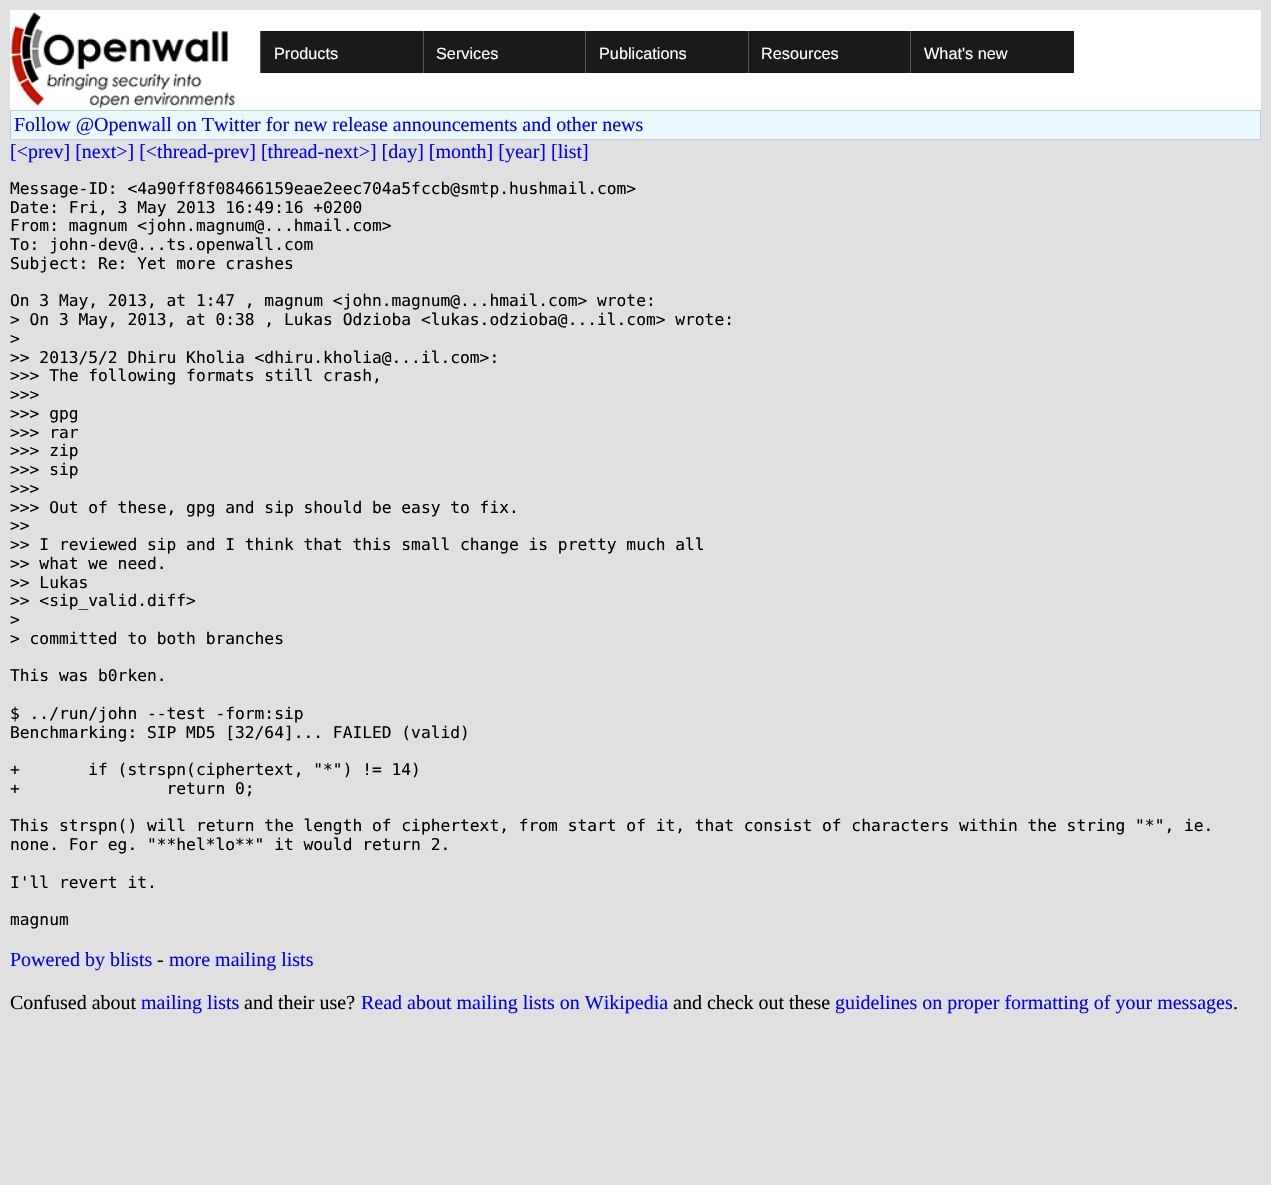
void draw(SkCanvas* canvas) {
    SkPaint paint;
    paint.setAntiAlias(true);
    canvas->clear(0xFFE0E0E0);
    paint.setColor(0xFFFFFFFF);
    canvas->drawRect(SkRect::MakeXYWH(10, 10, 1251, 100), paint);
    canvas->drawImageRect(SkImages::DeferredFromEncodedData(SkData::MakeFromFileName("img1.png")), SkRect::MakeXYWH(11, 12, 225, 97), SkSamplingOptions());
    paint.setColor(0xFF1A1A1A);
    canvas->drawRect(SkRect::MakeXYWH(261, 31, 162, 42), paint);
    paint.setColor(0xFF555555);
    canvas->drawRect(SkRect::MakeXYWH(260, 31, 1, 42), paint);
    SkFont font1(fontMgr->matchFamilyStyle("Liberation Sans", SkFontStyle::Normal()), 16.25f);
    font1.setSubpixel(true);
    paint.setColor(0xFFFFFFFF);
    canvas->drawString("Products", 274, 59, font1, paint);
    paint.setColor(0xFF1A1A1A);
    canvas->drawRect(SkRect::MakeXYWH(424, 31, 161, 42), paint);
    paint.setColor(0xFF555555);
    canvas->drawRect(SkRect::MakeXYWH(423, 31, 1, 42), paint);
    paint.setColor(0xFFFFFFFF);
    canvas->drawString("Services", 436, 59, font1, paint);
    paint.setColor(0xFF1A1A1A);
    canvas->drawRect(SkRect::MakeXYWH(586, 31, 162, 42), paint);
    paint.setColor(0xFF555555);
    canvas->drawRect(SkRect::MakeXYWH(585, 31, 1, 42), paint);
    paint.setColor(0xFFFFFFFF);
    canvas->drawString("Publications", 599, 59, font1, paint);
    paint.setColor(0xFF1A1A1A);
    canvas->drawRect(SkRect::MakeXYWH(749, 31, 161, 42), paint);
    paint.setColor(0xFF555555);
    canvas->drawRect(SkRect::MakeXYWH(748, 31, 1, 42), paint);
    paint.setColor(0xFFFFFFFF);
    canvas->drawString("Resources", 761, 59, font1, paint);
    paint.setColor(0xFF1A1A1A);
    canvas->drawRect(SkRect::MakeXYWH(911, 31, 163, 42), paint);
    paint.setColor(0xFF555555);
    canvas->drawRect(SkRect::MakeXYWH(910, 31, 1, 42), paint);
    paint.setColor(0xFFFFFFFF);
    canvas->drawString("What's new", 924, 59, font1, paint);
    paint.setColor(0xFFB4D0DC);
    canvas->drawRect(SkRect::MakeXYWH(10, 110, 1251, 30), paint);
    paint.setColor(0xFFECF8FF);
    canvas->drawRect(SkRect::MakeXYWH(11, 111, 1249, 28), paint);
    SkFont font2(fontMgr->matchFamilyStyle("Liberation Serif", SkFontStyle::Normal()), 20);
    font2.setSubpixel(true);
    paint.setColor(0xFF0000FF);
    canvas->drawString("Follow @Openwall on Twitter for new release announcements and other news", 14, 131, font2, paint);
    canvas->drawString("[<prev] [next>] [<thread-prev] [thread-next>] [day] [month] [year] [list]", 10, 158, font2, paint);
    SkFont font3(fontMgr->matchFamilyStyle("DejaVu Sans Mono", SkFontStyle::Normal()), 16.25f);
    font3.setSubpixel(true);
    paint.setColor(0xFF000000);
    canvas->drawString("Message-ID: <4a90ff8f08466159eae2eec704a5fccb@smtp.hushmail.com>", 10, 194, font3, paint);
    canvas->drawString("Date: Fri, 3 May 2013 16:49:16 +0200", 10, 213, font3, paint);
    canvas->drawString("From: magnum <john.magnum@...hmail.com>", 10, 231, font3, paint);
    canvas->drawString("To: john-dev@...ts.openwall.com", 10, 250, font3, paint);
    canvas->drawString("Subject: Re: Yet more crashes", 10, 269, font3, paint);
    canvas->drawString("On 3 May, 2013, at 1:47 , magnum <john.magnum@...hmail.com> wrote:", 10, 306, font3, paint);
    canvas->drawString("> On 3 May, 2013, at 0:38 , Lukas Odzioba <lukas.odzioba@...il.com> wrote:", 10, 325, font3, paint);
    canvas->drawString(">", 10, 344, font3, paint);
    canvas->drawString(">> 2013/5/2 Dhiru Kholia <dhiru.kholia@...il.com>:", 10, 363, font3, paint);
    canvas->drawString(">>> The following formats still crash,", 10, 381, font3, paint);
    canvas->drawString(">>>", 10, 400, font3, paint);
    canvas->drawString(">>> gpg", 10, 419, font3, paint);
    canvas->drawString(">>> rar", 10, 438, font3, paint);
    canvas->drawString(">>> zip", 10, 456, font3, paint);
    canvas->drawString(">>> sip", 10, 475, font3, paint);
    canvas->drawString(">>>", 10, 494, font3, paint);
    canvas->drawString(">>> Out of these, gpg and sip should be easy to fix.", 10, 513, font3, paint);
    canvas->drawString(">>", 10, 531, font3, paint);
    canvas->drawString(">> I reviewed sip and I think that this small change is pretty much all", 10, 550, font3, paint);
    canvas->drawString(">> what we need.", 10, 569, font3, paint);
    canvas->drawString(">> Lukas", 10, 588, font3, paint);
    canvas->drawString(">> <sip_valid.diff>", 10, 606, font3, paint);
    canvas->drawString(">", 10, 625, font3, paint);
    canvas->drawString("> committed to both branches", 10, 644, font3, paint);
    canvas->drawString("This was b0rken.", 10, 681, font3, paint);
    canvas->drawString("$ ../run/john --test -form:sip", 10, 719, font3, paint);
    canvas->drawString("Benchmarking: SIP MD5 [32/64]... FAILED (valid)", 10, 738, font3, paint);
    canvas->drawString("+       if (strspn(ciphertext, \"*\") != 14)", 10, 775, font3, paint);
    canvas->drawString("+               return 0;", 10, 794, font3, paint);
    canvas->drawString("This strspn() will return the length of ciphertext, from start of it, that consist of characters within the string \"*\", ie.", 10, 831, font3, paint);
    canvas->drawString("none. For eg. \"**hel*lo**\" it would return 2.", 10, 850, font3, paint);
    canvas->drawString("I'll revert it.", 10, 888, font3, paint);
    canvas->drawString("magnum", 10, 925, font3, paint);
    paint.setColor(0xFF0000FF);
    canvas->drawString("Powered by blists", 10, 966, font2, paint);
    paint.setColor(0xFF000000);
    canvas->drawString("-", 157, 966, font2, paint);
    paint.setColor(0xFF0000FF);
    canvas->drawString("more mailing lists", 169, 966, font2, paint);
    paint.setColor(0xFF000000);
    canvas->drawString("Confused about", 10, 1009, font2, paint);
    paint.setColor(0xFF0000FF);
    canvas->drawString("mailing lists", 141, 1009, font2, paint);
    paint.setColor(0xFF000000);
    canvas->drawString("and their use?", 244, 1009, font2, paint);
    paint.setColor(0xFF0000FF);
    canvas->drawString("Read about mailing lists on Wikipedia", 361, 1009, font2, paint);
    paint.setColor(0xFF000000);
    canvas->drawString("and check out these", 673, 1009, font2, paint);
    paint.setColor(0xFF0000FF);
    canvas->drawString("guidelines on proper formatting of your messages", 835, 1009, font2, paint);
    paint.setColor(0xFF000000);
    canvas->drawString(".", 1233, 1009, font2, paint);
}
